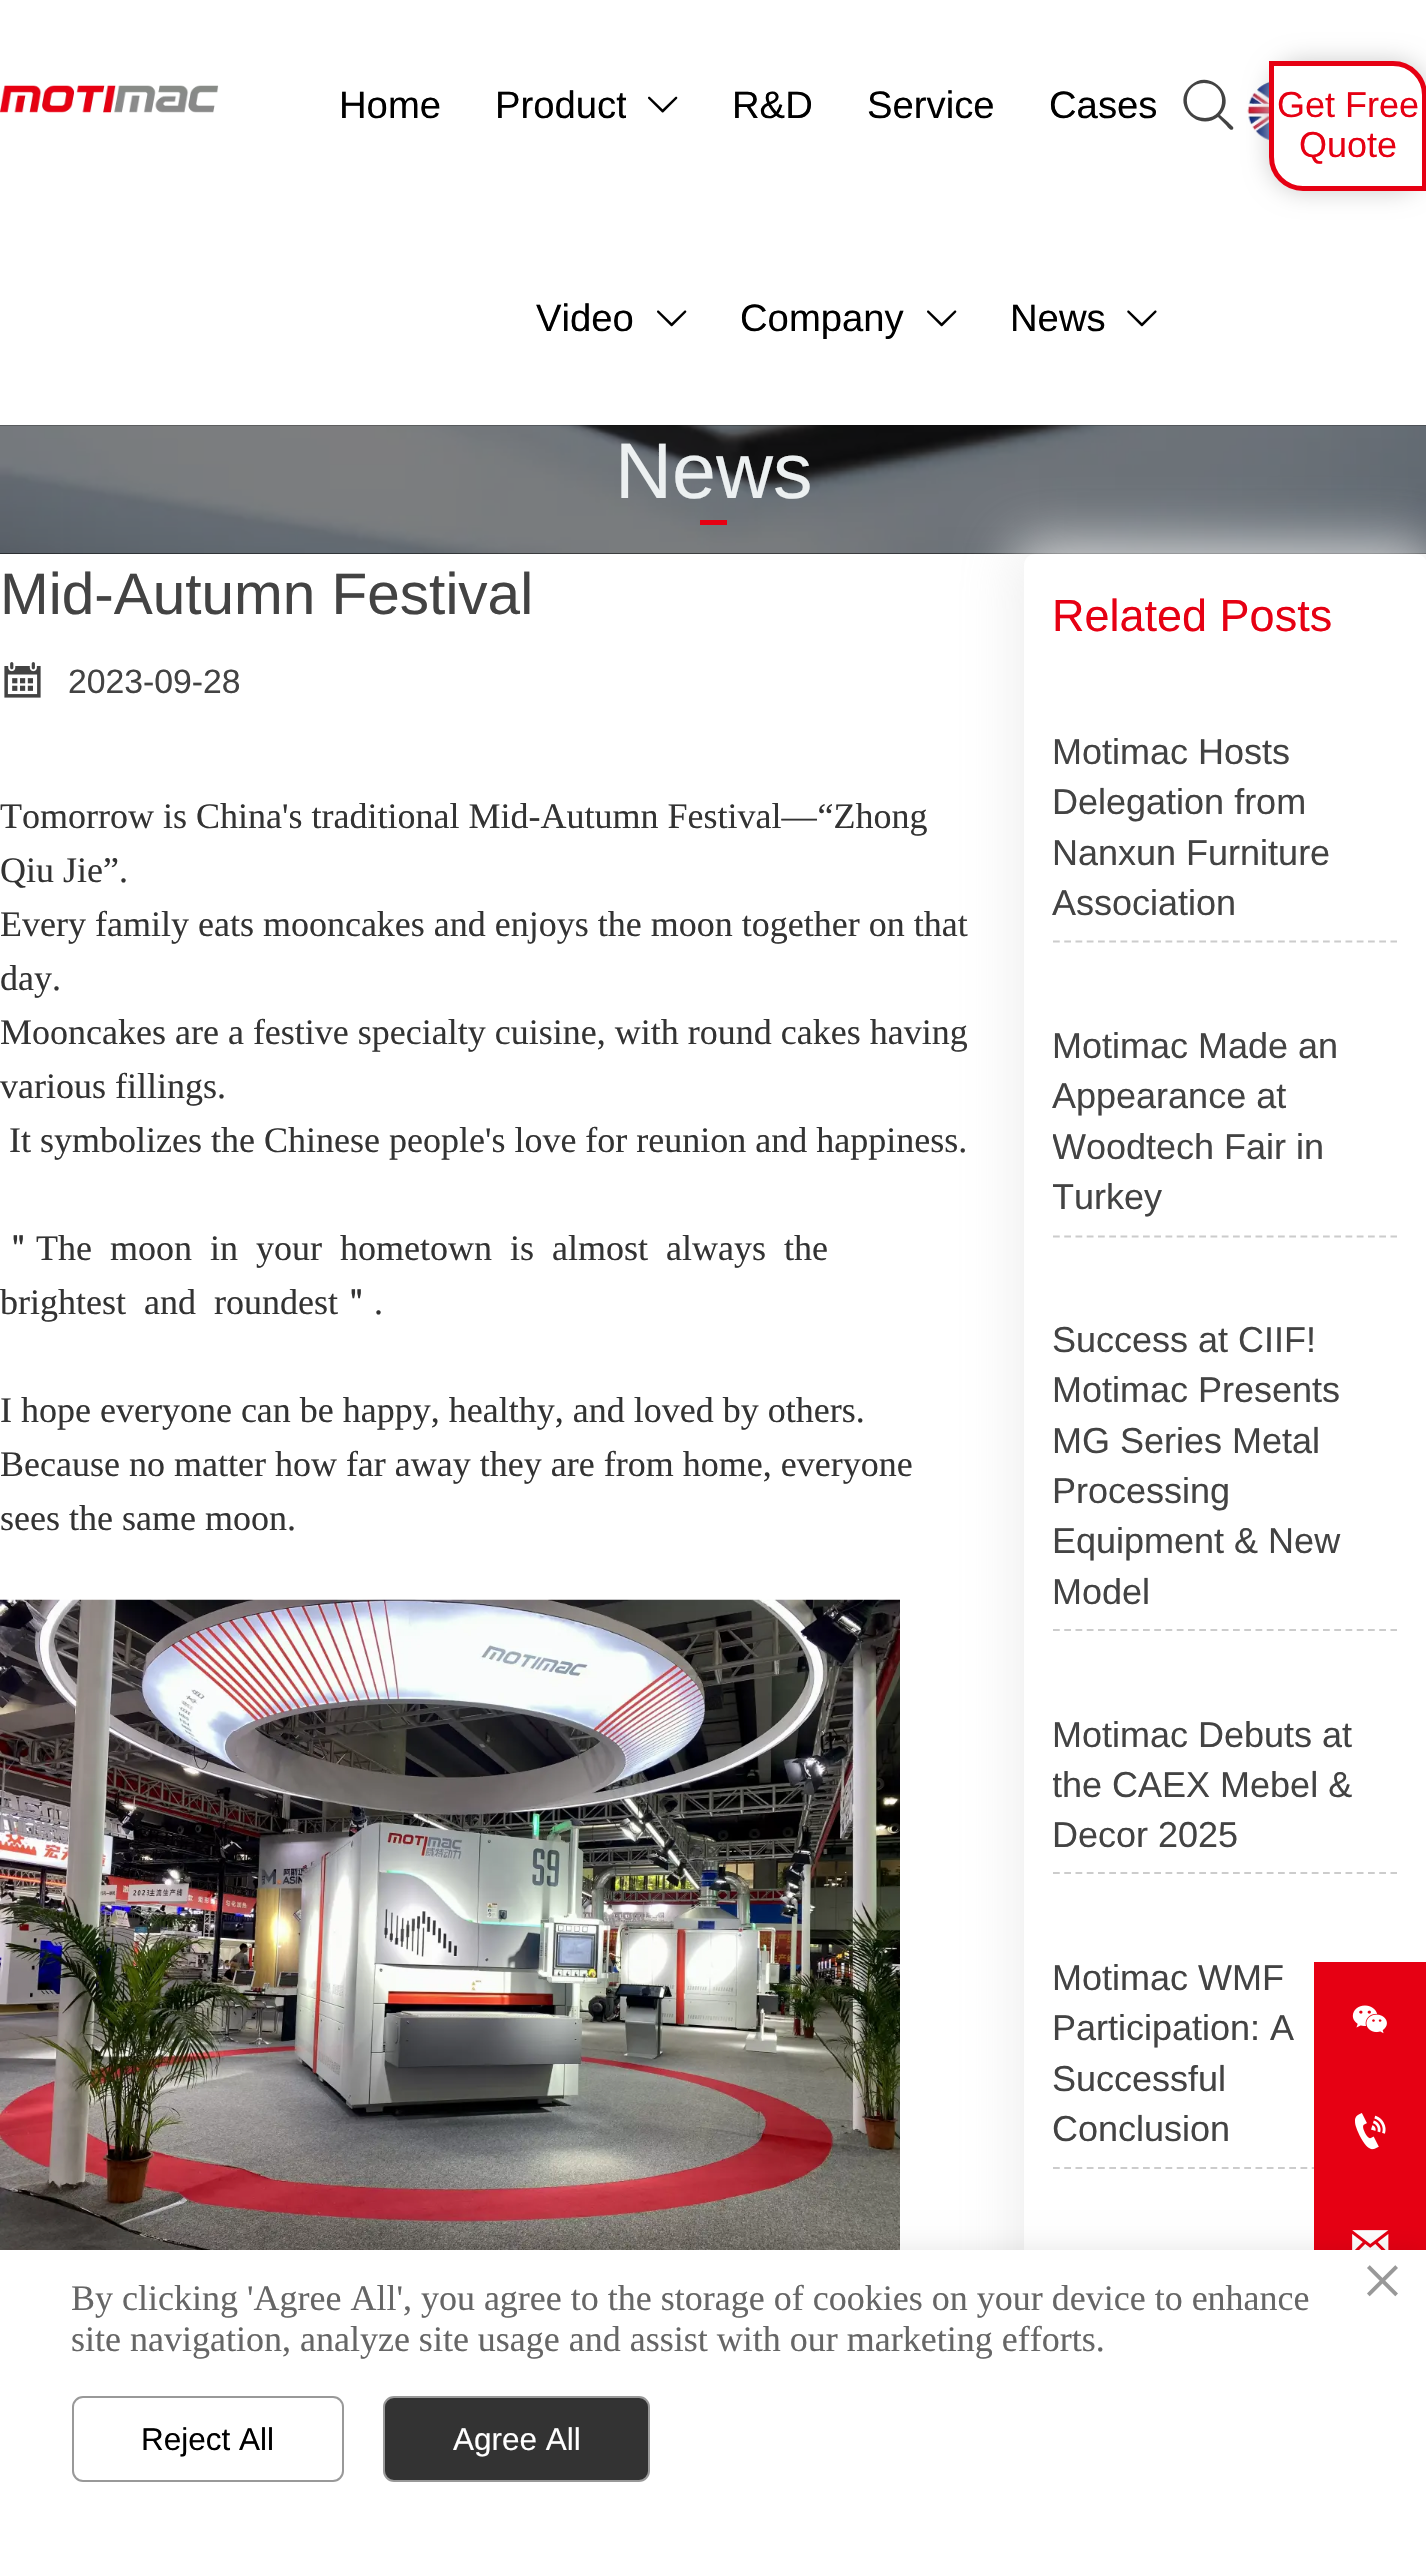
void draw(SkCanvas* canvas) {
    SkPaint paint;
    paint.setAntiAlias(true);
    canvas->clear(0xFFFFFFFF);
    canvas->drawImageRect(SkImages::DeferredFromEncodedData(SkData::MakeFromFileName("img1.png")), SkRect::MakeXYWH(0, 85, 219, 28), SkSamplingOptions());
    SkFont font1(fontMgr->matchFamilyStyle("Liberation Sans", SkFontStyle::Normal()), 38.25f);
    font1.setSubpixel(true);
    paint.setColor(0xFF000000);
    canvas->drawString("Home", 339, 118, font1, paint);
    canvas->save();
    canvas->clipRect(SkRect::MakeXYWH(495, 18, 131, 178));
    canvas->drawString("Product", 495, 118, font1, paint);
    canvas->restore();
    canvas->drawImageRect(SkImages::DeferredFromEncodedData(SkData::MakeFromFileName("img2.png")), SkRect::MakeXYWH(648, 96, 30, 17), SkSamplingOptions());
    canvas->drawString("R&D", 732, 118, font1, paint);
    canvas->drawString("Service", 867, 118, font1, paint);
    canvas->drawString("Cases", 1049, 118, font1, paint);
    canvas->drawString("Video", 536, 331, font1, paint);
    canvas->drawImageRect(SkImages::DeferredFromEncodedData(SkData::MakeFromFileName("img3.png")), SkRect::MakeXYWH(657, 310, 30, 17), SkSamplingOptions());
    canvas->drawString("Company", 740, 331, font1, paint);
    canvas->drawImageRect(SkImages::DeferredFromEncodedData(SkData::MakeFromFileName("img3.png")), SkRect::MakeXYWH(927, 310, 30, 17), SkSamplingOptions());
    canvas->drawString("News", 1010, 331, font1, paint);
    canvas->drawImageRect(SkImages::DeferredFromEncodedData(SkData::MakeFromFileName("img4.png")), SkRect::MakeXYWH(1127, 310, 30, 17), SkSamplingOptions());
    paint.setColor(0xFF434343);
    canvas->drawPath(SkPathBuilder().moveTo(1233, 129).cubicTo(1231, 132, 1227, 126, 1226, 125).lineTo(1218, 117).cubicTo(1197, 133, 1170, 103, 1191, 85).cubicTo(1210, 68, 1238, 96, 1220, 115).lineTo(1229, 123).cubicTo(1229, 124, 1235, 127, 1233, 129).close().moveTo(1204, 83).cubicTo(1181, 83, 1181, 118, 1205, 118).cubicTo(1228, 118, 1228, 83, 1204, 83).close().detach(), paint);
    canvas->drawImageRect(SkImages::DeferredFromEncodedData(SkData::MakeFromFileName("img5.png")), SkRect::MakeXYWH(1247, 81, 22, 60), SkSamplingOptions());
    paint.setColor(0xFFCCCCCC);
    paint.setMaskFilter(SkMaskFilter::MakeBlur(kNormal_SkBlurStyle, 12.5f));
    canvas->drawRoundRect(SkRect::MakeXYWH(1269, 61, 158, 130), 34, 34, paint);
    paint.setMaskFilter(nullptr);
    paint.setColor(0xFFFFFFFF);
    canvas->drawPath(SkPathBuilder().moveTo(1271.5f, 63.5f).lineTo(1393, 63.5f).cubicTo(1410.5f, 63.5f, 1424.5f, 77.5f, 1424.5f, 95).lineTo(1424.5f, 188.5f).lineTo(1303, 188.5f).cubicTo(1285.5f, 188.5f, 1271.5f, 174.5f, 1271.5f, 157).close().detach(), paint);
    paint.setStyle(SkPaint::kStroke_Style);
    paint.setStrokeWidth(5);
    paint.setColor(0xFFE60013);
    canvas->drawPath(SkPathBuilder().moveTo(1271.5f, 63.5f).lineTo(1393, 63.5f).cubicTo(1410.5f, 63.5f, 1424.5f, 77.5f, 1424.5f, 95).lineTo(1424.5f, 188.5f).lineTo(1303, 188.5f).cubicTo(1285.5f, 188.5f, 1271.5f, 174.5f, 1271.5f, 157).close().detach(), paint);
    SkFont font2(fontMgr->matchFamilyStyle("Liberation Sans", SkFontStyle::Normal()), 36);
    font2.setSubpixel(true);
    paint.setStyle(SkPaint::kFill_Style);
    canvas->drawString("Get Free", 1277, 117, font2, paint);
    canvas->drawString("Quote", 1299, 157, font2, paint);
    paint.setColor(0xFF000000);
    canvas->drawRect(SkRect::MakeXYWH(0, 425, 1426, 129), paint);
    canvas->drawImageRect(SkImages::DeferredFromEncodedData(SkData::MakeFromFileName("img6.png")), SkRect::MakeXYWH(0, 425, 1426, 129), SkSamplingOptions());
    SkFont font3(fontMgr->matchFamilyStyle("Liberation Sans", SkFontStyle::Normal()), 79);
    font3.setSubpixel(true);
    paint.setColor(0xFFECF0F1);
    canvas->drawString("News", 615, 498, font3, paint);
    paint.setColor(0xFFE60013);
    canvas->drawRect(SkRect::MakeXYWH(700, 520, 27, 5), paint);
    SkFont font4(fontMgr->matchFamilyStyle("Liberation Sans", SkFontStyle::Normal()), 58.5f);
    font4.setSubpixel(true);
    paint.setColor(0xFF434343);
    canvas->drawString("Mid-Autumn Festival", 0, 614, font4, paint);
    canvas->drawImageRect(SkImages::DeferredFromEncodedData(SkData::MakeFromFileName("img7.png")), SkRect::MakeXYWH(4, 662, 37, 36), SkSamplingOptions());
    SkFont font5(fontMgr->matchFamilyStyle("Liberation Sans", SkFontStyle::Normal()), 33.75f);
    font5.setSubpixel(true);
    canvas->drawString("2023-09-28", 68, 693, font5, paint);
    SkFont font6(fontMgr->matchFamilyStyle("Liberation Serif", SkFontStyle::Normal()), 36);
    font6.setSubpixel(true);
    paint.setColor(0xFF333333);
    canvas->drawString("Tomorrow is China's traditional Mid-Autumn Festival—“Zhong", 0, 828, font6, paint);
    canvas->drawString("Qiu Jie”.", 0, 882, font6, paint);
    paint.setColor(0xFFFFFFFF);
    canvas->drawRect(SkRect::MakeXYWH(817, 818, 1, 3), paint);
    paint.setColor(0xFF333333);
    canvas->drawString("Every family eats mooncakes and enjoys the moon together on that", 0, 936, font6, paint);
    canvas->drawString("day.", 0, 990, font6, paint);
    canvas->drawString("Mooncakes are a festive specialty cuisine, with round cakes having", 0, 1044, font6, paint);
    canvas->drawString("various fillings.", 0, 1098, font6, paint);
    canvas->drawString("It symbolizes the Chinese people's love for reunion and happiness.", 9, 1152, font6, paint);
    SkFont font7(fontMgr->matchFamilyStyle("WenQuanYi Zen Hei", SkFontStyle(500, SkFontStyle::kNormal_Width, SkFontStyle::kUpright_Slant)), 36);
    font7.setSubpixel(true);
    canvas->drawString("＂", 0, 1260, font7, paint);
    canvas->drawString("The moon in your hometown is almost always the", 36, 1260, font6, paint);
    canvas->drawString("brightest and roundest", 0, 1314, font6, paint);
    canvas->drawString("＂", 338, 1314, font7, paint);
    canvas->drawString(".", 374, 1314, font6, paint);
    canvas->drawString("I hope everyone can be happy, healthy, and loved by others.", 0, 1422, font6, paint);
    canvas->drawString("Because no matter how far away they are from home, everyone", 0, 1476, font6, paint);
    canvas->drawString("sees the same moon.", 0, 1530, font6, paint);
    canvas->drawImageRect(SkImages::DeferredFromEncodedData(SkData::MakeFromFileName("img8.png")), SkRect::MakeXYWH(0, 1599, 900, 651), SkSamplingOptions());
    paint.setColor(0xCFEBEBEB);
    paint.setMaskFilter(SkMaskFilter::MakeBlur(kNormal_SkBlurStyle, 27));
    canvas->drawRoundRect(SkRect::MakeXYWH(1013, 542, 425, 1794), 23, 23, paint);
    paint.setMaskFilter(nullptr);
    paint.setColor(0xFFFFFFFF);
    canvas->drawRoundRect(SkRect::MakeXYWH(1024, 554, 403, 1770), 11, 11, paint);
    SkFont font8(fontMgr->matchFamilyStyle("Liberation Sans", SkFontStyle::Normal()), 45);
    font8.setSubpixel(true);
    paint.setColor(0xFFE60013);
    canvas->drawString("Related Posts", 1052, 631, font8, paint);
    paint.setStyle(SkPaint::kStroke_Style);
    paint.setStrokeWidth(2.2f);
    paint.setColor(0xFFCCCCCC);
    paint.setPathEffect(SkDashPathEffect::Make({{6.75f, 4.5f}}, 0));
    canvas->drawPath(SkPathBuilder().moveTo(1053, 941.5f).lineTo(1397, 941.5f).detach(), paint);
    paint.setPathEffect(nullptr);
    paint.setStyle(SkPaint::kFill_Style);
    paint.setColor(0xFF434343);
    canvas->drawString("Motimac Hosts", 1052, 764, font2, paint);
    canvas->drawString("Delegation from", 1052, 814, font2, paint);
    canvas->drawString("Nanxun Furniture", 1052, 865, font2, paint);
    canvas->drawString("Association", 1052, 915, font2, paint);
    paint.setStyle(SkPaint::kStroke_Style);
    paint.setColor(0xFFCCCCCC);
    paint.setPathEffect(SkDashPathEffect::Make({{6.75f, 4.5f}}, 0));
    canvas->drawPath(SkPathBuilder().moveTo(1053, 1236.5f).lineTo(1397, 1236.5f).detach(), paint);
    paint.setPathEffect(nullptr);
    paint.setStyle(SkPaint::kFill_Style);
    paint.setColor(0xFF434343);
    canvas->drawString("Motimac Made an", 1052, 1058, font2, paint);
    canvas->drawString("Appearance at", 1052, 1108, font2, paint);
    canvas->save();
    canvas->clipRect(SkRect::MakeXYWH(1053, 1022, 344, 202));
    canvas->drawString("Woodtech Fair in", 1052, 1159, font2, paint);
    canvas->drawString("Turkey", 1052, 1209, font2, paint);
    canvas->restore();
    paint.setStyle(SkPaint::kStroke_Style);
    paint.setColor(0xFFCCCCCC);
    paint.setPathEffect(SkDashPathEffect::Make({{6.75f, 4.5f}}, 0));
    canvas->drawPath(SkPathBuilder().moveTo(1053, 1630).lineTo(1397, 1630).detach(), paint);
    paint.setPathEffect(nullptr);
    paint.setStyle(SkPaint::kFill_Style);
    paint.setColor(0xFF434343);
    canvas->drawString("Success at CIIF!", 1052, 1352, font2, paint);
    canvas->drawString("Motimac Presents", 1052, 1402, font2, paint);
    canvas->drawString("MG Series Metal", 1052, 1453, font2, paint);
    canvas->drawString("Processing", 1052, 1503, font2, paint);
    canvas->drawString("Equipment & New", 1052, 1553, font2, paint);
    canvas->drawString("Model", 1052, 1604, font2, paint);
    paint.setStyle(SkPaint::kStroke_Style);
    paint.setColor(0xFFCCCCCC);
    paint.setPathEffect(SkDashPathEffect::Make({{6.75f, 4.5f}}, 0));
    canvas->drawPath(SkPathBuilder().moveTo(1053, 1873).lineTo(1397, 1873).detach(), paint);
    paint.setPathEffect(nullptr);
    paint.setStyle(SkPaint::kFill_Style);
    paint.setColor(0xFF434343);
    canvas->drawString("Motimac Debuts at", 1052, 1747, font2, paint);
    canvas->save();
    canvas->clipRect(SkRect::MakeXYWH(1053, 1710, 344, 151));
    canvas->drawString("the CAEX Mebel &", 1052, 1797, font2, paint);
    canvas->restore();
    canvas->drawString("Decor 2025", 1052, 1847, font2, paint);
    paint.setStyle(SkPaint::kStroke_Style);
    paint.setColor(0xFFCCCCCC);
    paint.setPathEffect(SkDashPathEffect::Make({{6.75f, 4.5f}}, 0));
    canvas->drawPath(SkPathBuilder().moveTo(1053, 2168).lineTo(1397, 2168).detach(), paint);
    paint.setPathEffect(nullptr);
    paint.setStyle(SkPaint::kFill_Style);
    paint.setColor(0xFF434343);
    canvas->drawString("Motimac WMF", 1052, 1990, font2, paint);
    canvas->drawString("Participation: A", 1052, 2040, font2, paint);
    canvas->drawString("Successful", 1052, 2091, font2, paint);
    canvas->drawString("Conclusion", 1052, 2141, font2, paint);
    paint.setColor(0xFFE60013);
    canvas->drawRect(SkRect::MakeXYWH(1314, 1962, 112, 288), paint);
    canvas->drawImageRect(SkImages::DeferredFromEncodedData(SkData::MakeFromFileName("img9.png")), SkRect::MakeXYWH(1352, 2005, 35, 29), SkSamplingOptions());
    canvas->drawImageRect(SkImages::DeferredFromEncodedData(SkData::MakeFromFileName("img10.png")), SkRect::MakeXYWH(1355, 2113, 31, 37), SkSamplingOptions());
    canvas->drawImageRect(SkImages::DeferredFromEncodedData(SkData::MakeFromFileName("img11.png")), SkRect::MakeXYWH(1352, 2230, 37, 20), SkSamplingOptions());
    paint.setColor(0x1A000000);
    paint.setMaskFilter(SkMaskFilter::MakeBlur(kNormal_SkBlurStyle, 13.5f));
    canvas->drawRect(SkRect::MakeXYWH(0, 2250, 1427, 315), paint);
    paint.setMaskFilter(nullptr);
    paint.setColor(0xFFFFFFFF);
    canvas->drawRect(SkRect::MakeXYWH(0, 2250, 1426, 315), paint);
    paint.setColor(0xFF666666);
    canvas->drawString("By clicking 'Agree All', you agree to the storage of cookies on your device to enhance", 71, 2310, font6, paint);
    canvas->drawString("site navigation, analyze site usage and assist with our marketing efforts.", 71, 2351, font6, paint);
    SkFont font9(fontMgr->matchFamilyStyle("Liberation Serif", SkFontStyle::Normal()), 76);
    font9.setSubpixel(true);
    paint.setColor(0xFF999999);
    canvas->drawString("×", 1361, 2306, font9, paint);
    paint.setStyle(SkPaint::kStroke_Style);
    paint.setStrokeWidth(2);
    canvas->drawRoundRect(SkRect::MakeXYWH(73, 2397, 270, 84), 10, 10, paint);
    SkFont font10(fontMgr->matchFamilyStyle("Liberation Sans", SkFontStyle::Normal()), 31.5f);
    font10.setSubpixel(true);
    paint.setStyle(SkPaint::kFill_Style);
    paint.setColor(0xFF000000);
    canvas->drawString("Reject All", 141, 2450, font10, paint);
    paint.setColor(0xFF333333);
    canvas->drawRoundRect(SkRect::MakeXYWH(384, 2397, 265, 84), 10, 10, paint);
    paint.setStyle(SkPaint::kStroke_Style);
    paint.setColor(0xFF999999);
    canvas->drawRoundRect(SkRect::MakeXYWH(384, 2397, 265, 84), 10, 10, paint);
    paint.setStyle(SkPaint::kFill_Style);
    paint.setColor(0xFFFFFFFF);
    canvas->drawString("Agree All", 453, 2450, font10, paint);
}
